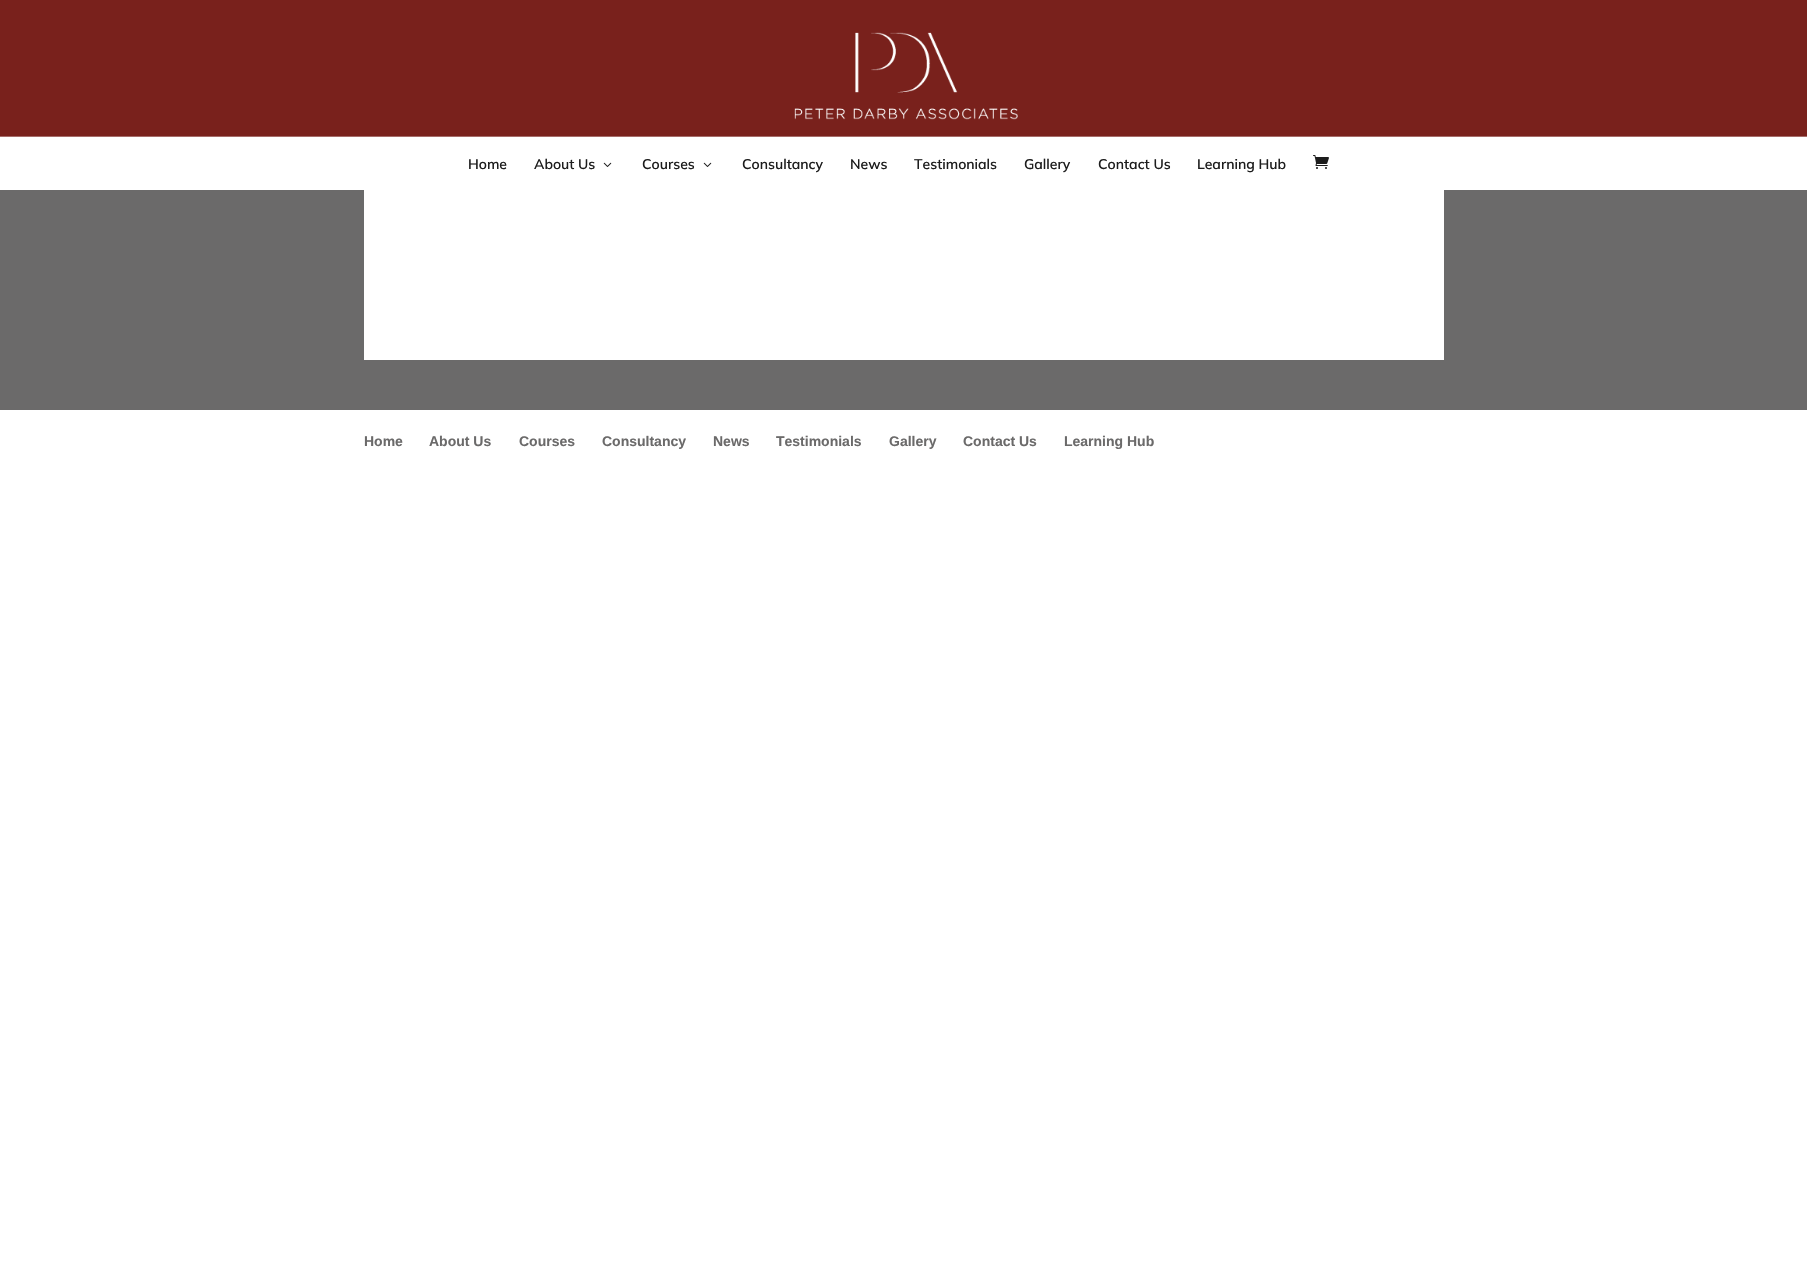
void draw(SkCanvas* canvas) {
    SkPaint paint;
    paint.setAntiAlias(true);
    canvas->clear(0xFFFFFFFF);
    canvas->drawImageRect(SkImages::DeferredFromEncodedData(SkData::MakeFromFileName("img1.png")), SkRect::MakeXYWH(0, 0, 1807, 190), SkSamplingOptions());
    canvas->drawImageRect(SkImages::DeferredFromEncodedData(SkData::MakeFromFileName("img2.png")), SkRect::MakeXYWH(794, 32, 224, 88), SkSamplingOptions());
    SkFont font1(fontMgr->matchFamilyStyle("Mulish", SkFontStyle(600, SkFontStyle::kNormal_Width, SkFontStyle::kUpright_Slant)), 14);
    font1.setSubpixel(true);
    paint.setColor(0xFF1D1D1D);
    canvas->drawString("Home", 468, 169, font1, paint);
    canvas->drawString("About Us", 534, 169, font1, paint);
    canvas->drawImageRect(SkImages::DeferredFromEncodedData(SkData::MakeFromFileName("img3.png")), SkRect::MakeXYWH(603, 162, 9, 5), SkSamplingOptions());
    canvas->drawString("Courses", 642, 169, font1, paint);
    canvas->drawImageRect(SkImages::DeferredFromEncodedData(SkData::MakeFromFileName("img3.png")), SkRect::MakeXYWH(703, 162, 9, 5), SkSamplingOptions());
    canvas->drawString("Consultancy", 742, 169, font1, paint);
    canvas->drawString("News", 850, 169, font1, paint);
    canvas->drawString("Testimonials", 914, 169, font1, paint);
    canvas->drawString("Gallery", 1024, 169, font1, paint);
    canvas->drawString("Contact Us", 1098, 169, font1, paint);
    canvas->drawString("Learning Hub", 1197, 169, font1, paint);
    canvas->drawImageRect(SkImages::DeferredFromEncodedData(SkData::MakeFromFileName("img4.png")), SkRect::MakeXYWH(1313, 155, 16, 14), SkSamplingOptions());
    paint.setColor(0xFF6B6A6A);
    canvas->drawRect(SkRect::MakeXYWH(0, 190, 1807, 220), paint);
    paint.setColor(0xFFFFFFFF);
    canvas->drawRect(SkRect::MakeXYWH(364, 190, 1080, 170), paint);
    SkFont font2(fontMgr->matchFamilyStyle("Liberation Sans", SkFontStyle::Bold()), 14);
    font2.setSubpixel(true);
    paint.setColor(0xFF6B6A6A);
    canvas->drawString("Home", 364, 446, font2, paint);
    canvas->drawString("About Us", 429, 446, font2, paint);
    canvas->drawString("Courses", 519, 446, font2, paint);
    canvas->drawString("Consultancy", 602, 446, font2, paint);
    canvas->drawString("News", 713, 446, font2, paint);
    canvas->drawString("Testimonials", 776, 446, font2, paint);
    canvas->drawString("Gallery", 889, 446, font2, paint);
    canvas->drawString("Contact Us", 963, 446, font2, paint);
    canvas->drawString("Learning Hub", 1064, 446, font2, paint);
}
